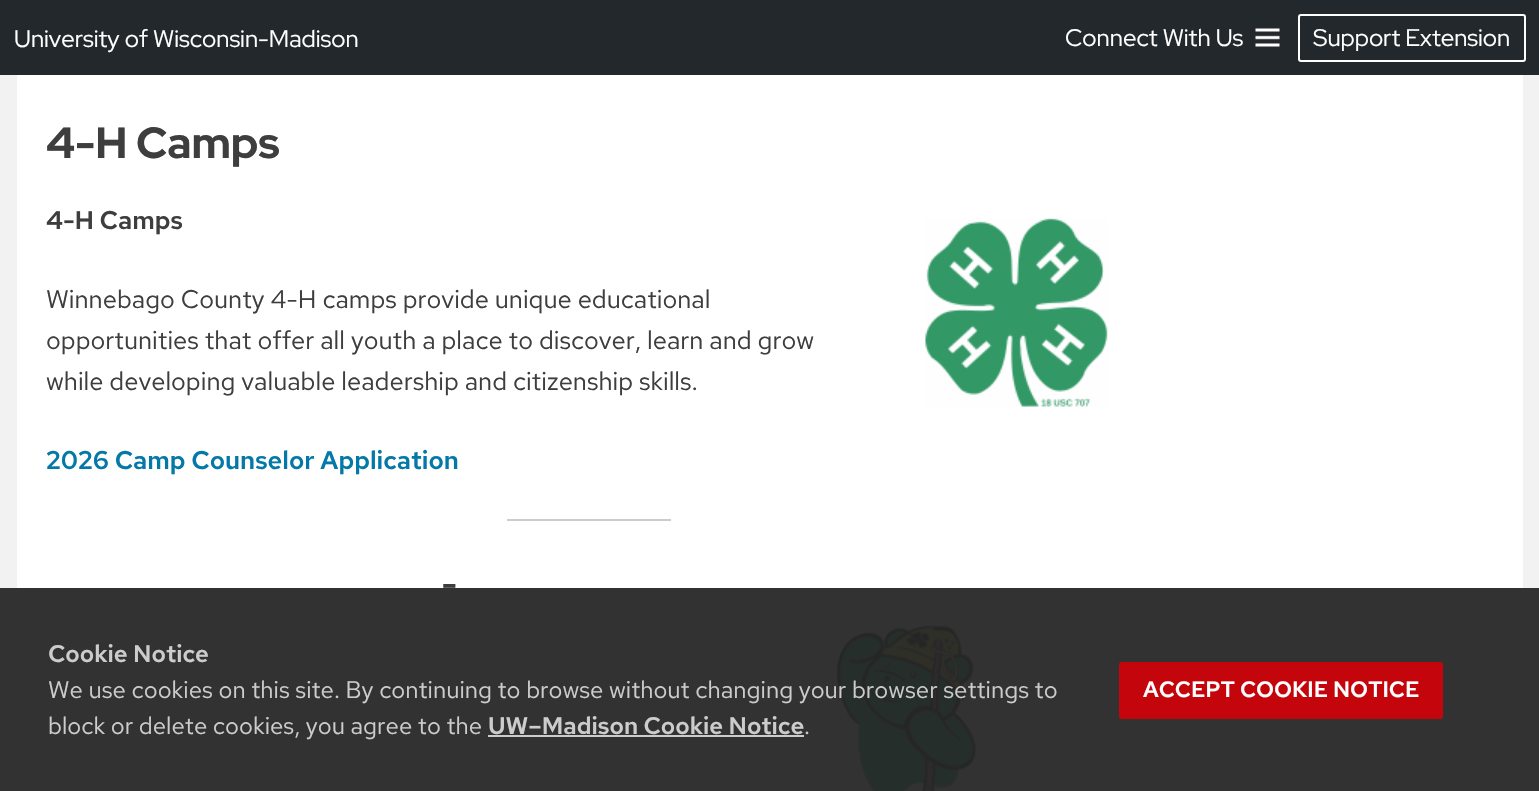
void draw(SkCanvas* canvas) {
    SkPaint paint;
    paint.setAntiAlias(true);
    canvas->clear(0xFFF3F2F2);
    paint.setColor(0xFF23282D);
    canvas->drawRect(SkRect::MakeXYWH(0, 0, 1539, 75), paint);
    SkFont font1(fontMgr->matchFamilyStyle("Red Hat Display", SkFontStyle::Normal()), 24);
    font1.setSubpixel(true);
    paint.setColor(0xFFFFFFFF);
    canvas->drawString("University of Wisconsin-Madison", 14, 47, font1, paint);
    canvas->drawImageRect(SkImages::DeferredFromEncodedData(SkData::MakeFromFileName("img1.png")), SkRect::MakeXYWH(1255, 28, 25, 19), SkSamplingOptions());
    canvas->drawString("Connect With Us", 1065, 46, font1, paint);
    paint.setStyle(SkPaint::kStroke_Style);
    paint.setStrokeWidth(2);
    canvas->drawRoundRect(SkRect::MakeXYWH(1299, 15, 226, 46), 2, 2, paint);
    paint.setStyle(SkPaint::kFill_Style);
    canvas->drawString("Support Extension", 1313, 46, font1, paint);
    canvas->drawRect(SkRect::MakeXYWH(17, 75, 1506, 716), paint);
    SkFont font2(fontMgr->matchFamilyStyle("Red Hat Display", SkFontStyle::Bold()), 43.5f);
    font2.setSubpixel(true);
    paint.setColor(0xFF3E3E3E);
    canvas->drawString("4-H Camps", 46, 158, font2, paint);
    SkFont font3(fontMgr->matchFamilyStyle("Red Hat Text", SkFontStyle(600, SkFontStyle::kNormal_Width, SkFontStyle::kUpright_Slant)), 25.5f);
    font3.setSubpixel(true);
    canvas->drawString("4-H Camps", 46, 229, font3, paint);
    canvas->drawImageRect(SkImages::DeferredFromEncodedData(SkData::MakeFromFileName("img2.png")), SkRect::MakeXYWH(925, 218, 183, 189), SkSamplingOptions());
    SkFont font4(fontMgr->matchFamilyStyle("Red Hat Text", SkFontStyle::Normal()), 25.5f);
    font4.setSubpixel(true);
    canvas->drawString("Winnebago County 4-H camps provide unique educational", 46, 308, font4, paint);
    canvas->drawString("opportunities that offer all youth a place to discover, learn and grow", 46, 349, font4, paint);
    canvas->drawString("while developing valuable leadership and citizenship skills.", 46, 390, font4, paint);
    paint.setColor(0xFF0479A8);
    canvas->drawString("2026 Camp Counselor Application", 46, 469, font3, paint);
    paint.setColor(0xFFCCCCCC);
    canvas->drawRect(SkRect::MakeXYWH(507, 519, 164, 2), paint);
    SkFont font5(fontMgr->matchFamilyStyle("Red Hat Display", SkFontStyle::Bold()), 32);
    font5.setSubpixel(true);
    paint.setColor(0xFF3E3E3E);
    canvas->drawString("-", 442, 595, font5, paint);
    canvas->drawImageRect(SkImages::DeferredFromEncodedData(SkData::MakeFromFileName("img3.png")), SkRect::MakeXYWH(835, 625, 142, 166), SkSamplingOptions());
    paint.setColor(0xF2282728);
    canvas->drawRect(SkRect::MakeXYWH(0, 588, 1539, 203), paint);
    SkFont font6(fontMgr->matchFamilyStyle("Red Hat Text", SkFontStyle(600, SkFontStyle::kNormal_Width, SkFontStyle::kUpright_Slant)), 24);
    font6.setSubpixel(true);
    paint.setColor(0xFFCCCCCC);
    canvas->drawString("Cookie Notice", 48, 662, font6, paint);
    SkFont font7(fontMgr->matchFamilyStyle("Red Hat Text", SkFontStyle::Normal()), 24);
    font7.setSubpixel(true);
    canvas->drawString("We use cookies on this site. By continuing to browse without changing your browser settings to", 48, 698, font7, paint);
    canvas->drawString("block or delete cookies, you agree to the", 48, 734, font7, paint);
    canvas->drawString("UW–Madison Cookie Notice", 488, 734, font6, paint);
    canvas->drawRect(SkRect::MakeXYWH(488, 735, 316, 2), paint);
    canvas->drawString(".", 804, 734, font7, paint);
    paint.setColor(0xFFC5050C);
    canvas->drawRoundRect(SkRect::MakeXYWH(1119, 662, 324, 57), 3, 3, paint);
    SkFont font8(fontMgr->matchFamilyStyle("Red Hat Text", SkFontStyle(600, SkFontStyle::kNormal_Width, SkFontStyle::kUpright_Slant)), 22.25f);
    font8.setSubpixel(true);
    paint.setColor(0xFFFFFFFF);
    canvas->drawString("ACCEPT COOKIE NOTICE", 1143, 697, font8, paint);
}
